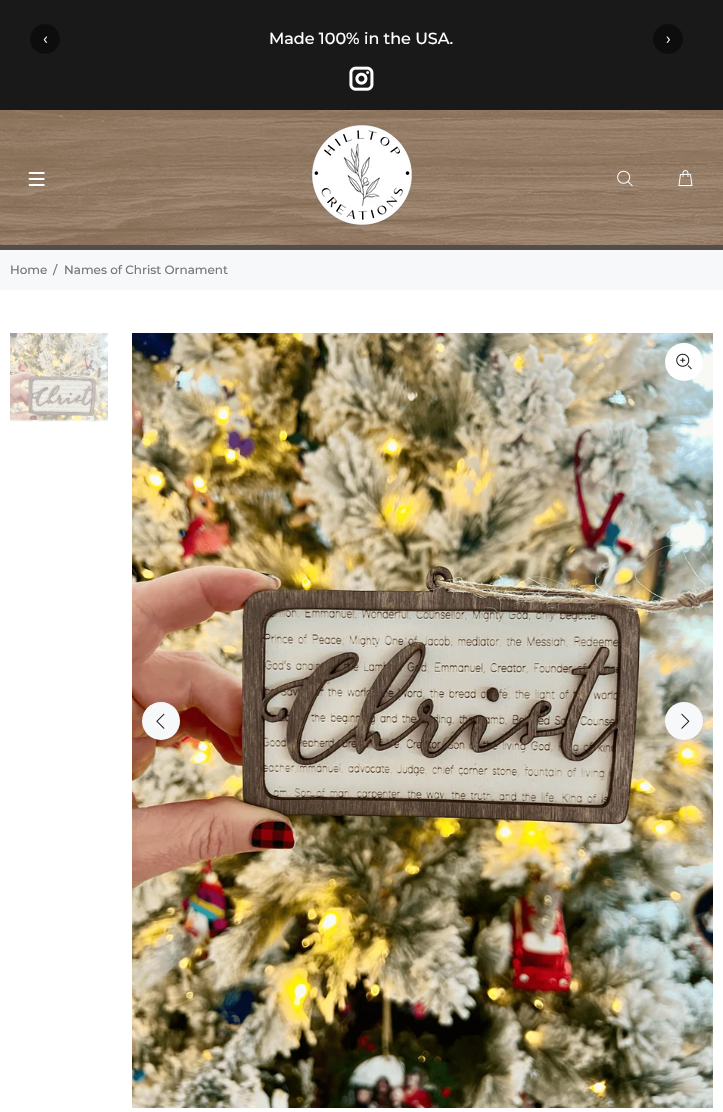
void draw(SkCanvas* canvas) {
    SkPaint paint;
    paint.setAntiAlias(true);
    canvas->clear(0xFFFFFFFF);
    paint.setColor(0xFF8E735B);
    canvas->drawRect(SkRect::MakeXYWH(0, 110, 723, 135), paint);
    canvas->drawImageRect(SkImages::DeferredFromEncodedData(SkData::MakeFromFileName("img1.png")), SkRect::MakeXYWH(0, 110, 723, 135), SkSamplingOptions());
    paint.setColor(0xFF544E4A);
    canvas->drawRect(SkRect::MakeXYWH(0, 245, 723, 5), paint);
    paint.setColor(0xFF191919);
    canvas->drawRect(SkRect::MakeXYWH(0, 0, 723, 110), paint);
    paint.setColor(0xFF0D0D0D);
    canvas->drawCircle(45, 39, 15, paint);
    SkFont font1(fontMgr->matchFamilyStyle("Montserrat", SkFontStyle::Normal()), 16);
    font1.setSubpixel(true);
    paint.setColor(0xFFFFFFFF);
    canvas->drawString("‹", 43, 44, font1, paint);
    SkFont font2(fontMgr->matchFamilyStyle("Montserrat", SkFontStyle(500, SkFontStyle::kNormal_Width, SkFontStyle::kUpright_Slant)), 16);
    font2.setSubpixel(true);
    canvas->drawString("Made 100% in the USA.", 269, 44, font2, paint);
    paint.setColor(0xFF0D0D0D);
    canvas->drawCircle(668, 39, 15, paint);
    paint.setColor(0xFFFFFFFF);
    canvas->drawString("›", 666, 44, font1, paint);
    canvas->drawImageRect(SkImages::DeferredFromEncodedData(SkData::MakeFromFileName("img2.png")), SkRect::MakeXYWH(349, 66, 25, 25), SkSamplingOptions());
    canvas->drawImageRect(SkImages::DeferredFromEncodedData(SkData::MakeFromFileName("img3.png")), SkRect::MakeXYWH(28, 172, 17, 14), SkSamplingOptions());
    canvas->drawImageRect(SkImages::DeferredFromEncodedData(SkData::MakeFromFileName("img4.png")), SkRect::MakeXYWH(312, 125, 100, 100), SkSamplingOptions());
    canvas->drawImageRect(SkImages::DeferredFromEncodedData(SkData::MakeFromFileName("img5.png")), SkRect::MakeXYWH(617, 170, 16, 17), SkSamplingOptions());
    canvas->drawImageRect(SkImages::DeferredFromEncodedData(SkData::MakeFromFileName("img6.png")), SkRect::MakeXYWH(678, 170, 15, 17), SkSamplingOptions());
    paint.setColor(0xFFF7F8FA);
    canvas->drawRect(SkRect::MakeXYWH(0, 250, 723, 40), paint);
    SkFont font3(fontMgr->matchFamilyStyle("Montserrat", SkFontStyle(500, SkFontStyle::kNormal_Width, SkFontStyle::kUpright_Slant)), 12);
    font3.setSubpixel(true);
    paint.setColor(0xFF777777);
    canvas->drawString("Home", 10, 274, font3, paint);
    canvas->drawString("/", 53, 274, font3, paint);
    canvas->drawString("Names of Christ Ornament", 64, 274, font3, paint);
    canvas->drawImageRect(SkImages::DeferredFromEncodedData(SkData::MakeFromFileName("img7.png")), SkRect::MakeXYWH(10, 333, 98, 100), SkSamplingOptions());
    canvas->drawImageRect(SkImages::DeferredFromEncodedData(SkData::MakeFromFileName("img8.png")), SkRect::MakeXYWH(132, 333, 581, 775), SkSamplingOptions());
    paint.setColor(0xFFFFFFFF);
    canvas->drawCircle(684, 362, 19, paint);
    canvas->drawImageRect(SkImages::DeferredFromEncodedData(SkData::MakeFromFileName("img9.png")), SkRect::MakeXYWH(676, 353, 16, 17), SkSamplingOptions());
    paint.setColor(0xFFF7F8FA);
    canvas->drawCircle(161, 721, 19, paint);
    canvas->drawImageRect(SkImages::DeferredFromEncodedData(SkData::MakeFromFileName("img10.png")), SkRect::MakeXYWH(156, 713, 9, 16), SkSamplingOptions());
    canvas->drawCircle(684, 721, 19, paint);
    canvas->drawImageRect(SkImages::DeferredFromEncodedData(SkData::MakeFromFileName("img11.png")), SkRect::MakeXYWH(681, 713, 9, 16), SkSamplingOptions());
}
